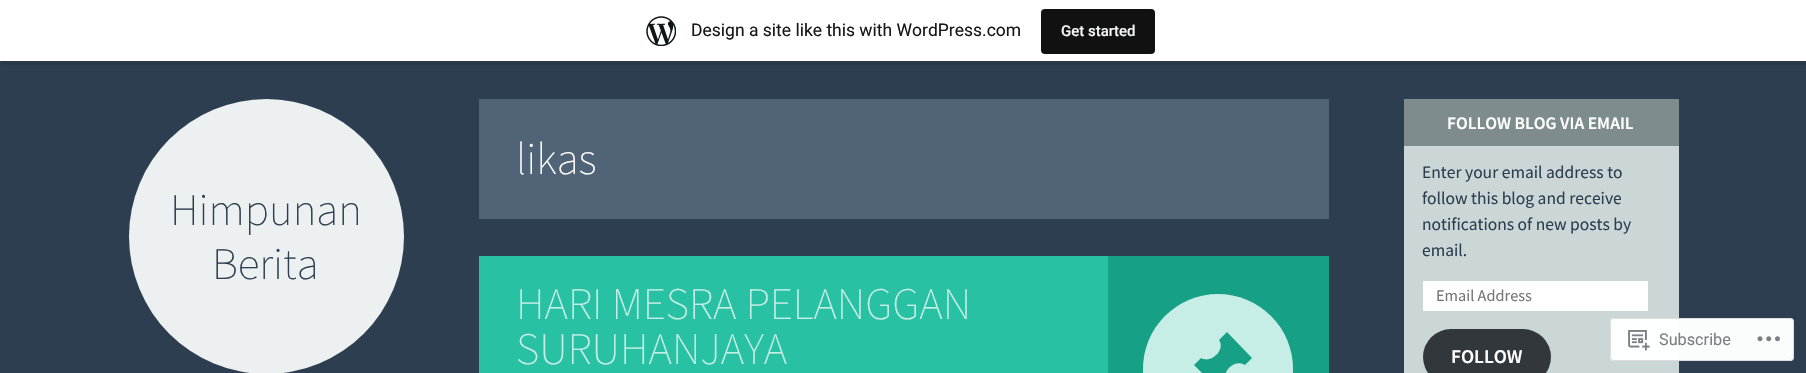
void draw(SkCanvas* canvas) {
    SkPaint paint;
    paint.setAntiAlias(true);
    canvas->clear(0xFF2C3E50);
    paint.setColor(0x14000000);
    canvas->drawPath(SkPathBuilder().moveTo(1, 61).lineTo(1, 65).lineTo(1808, 65).lineTo(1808, 4).lineTo(1806, 4).lineTo(1806, 61).close().detach(), paint);
    paint.setColor(0xFFFFFFFF);
    canvas->drawRect(SkRect::MakeXYWH(0, 0, 1806, 61), paint);
    canvas->drawImageRect(SkImages::DeferredFromEncodedData(SkData::MakeFromFileName("img1.png")), SkRect::MakeXYWH(646, 16, 30, 30), SkSamplingOptions());
    SkFont font1(fontMgr->matchFamilyStyle("Roboto", SkFontStyle::Normal()), 17.5f);
    font1.setSubpixel(true);
    paint.setColor(0xFF171717);
    canvas->drawString("Design a site like this with WordPress.com", 691, 36, font1, paint);
    paint.setColor(0xFF111111);
    canvas->drawRoundRect(SkRect::MakeXYWH(1041, 9, 114, 45), 4, 4, paint);
    SkFont font2(fontMgr->matchFamilyStyle("Roboto", SkFontStyle(500, SkFontStyle::kNormal_Width, SkFontStyle::kUpright_Slant)), 15);
    font2.setSubpixel(true);
    paint.setColor(0xFFF6F7F7);
    canvas->drawString("Get started", 1061, 36, font2, paint);
    paint.setColor(0xFFECF0F1);
    canvas->drawCircle(266.5f, 236.5f, 137.5f, paint);
    SkFont font3(fontMgr->matchFamilyStyle("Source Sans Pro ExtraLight", SkFontStyle(200, SkFontStyle::kNormal_Width, SkFontStyle::kUpright_Slant)), 45);
    font3.setSubpixel(true);
    paint.setColor(0xFF2C3E50);
    canvas->drawString("Himpunan", 170, 225, font3, paint);
    canvas->drawString("Berita", 212, 279, font3, paint);
    paint.setColor(0xFF516477);
    canvas->drawRect(SkRect::MakeXYWH(479, 99, 850, 120), paint);
    paint.setColor(0xFFFFFFFF);
    canvas->drawString("likas", 516, 174, font3, paint);
    paint.setColor(0xFF28C1A3);
    canvas->drawRect(SkRect::MakeXYWH(479, 256, 629, 117), paint);
    paint.setColor(0xFFC7EEE6);
    canvas->drawString("HARI MESRA PELANGGAN", 516, 319, font3, paint);
    canvas->drawString("SURUHANJAYA", 516, 364, font3, paint);
    paint.setColor(0xFF16A085);
    canvas->drawRect(SkRect::MakeXYWH(1108, 256, 221, 117), paint);
    paint.setColor(0xFFC7EEE6);
    canvas->drawCircle(1218, 369, 75, paint);
    paint.setColor(0xFF16A085);
    canvas->drawPath(SkPathBuilder().moveTo(1219, 340).lineTo(1227, 332).lineTo(1252, 358).lineTo(1245, 365).cubicTo(1234, 358, 1220, 373, 1227, 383).lineTo(1219, 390).lineTo(1210, 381).cubicTo(1205, 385, 1191, 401, 1184, 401).cubicTo(1183, 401, 1183, 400, 1183, 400).cubicTo(1185, 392, 1196, 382, 1202, 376).lineTo(1204, 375).lineTo(1194, 365).lineTo(1201, 358).cubicTo(1211, 364, 1226, 350, 1219, 340).close().detach(), paint);
    paint.setColor(0xFFCBD6D6);
    canvas->drawRect(SkRect::MakeXYWH(1404, 146, 275, 227), paint);
    paint.setColor(0xFF7F8C8D);
    canvas->drawRect(SkRect::MakeXYWH(1404, 99, 275, 47), paint);
    SkFont font4(fontMgr->matchFamilyStyle("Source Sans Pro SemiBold", SkFontStyle(600, SkFontStyle::kNormal_Width, SkFontStyle::kUpright_Slant)), 17.5f);
    font4.setSubpixel(true);
    paint.setColor(0xFFFFFFFF);
    canvas->drawString("FOLLOW BLOG VIA EMAIL", 1447, 129, font4, paint);
    SkFont font5(fontMgr->matchFamilyStyle("Source Sans Pro", SkFontStyle::Normal()), 17.5f);
    font5.setSubpixel(true);
    paint.setColor(0xFF2C3E50);
    canvas->drawString("Enter your email address to", 1422, 178, font5, paint);
    canvas->drawString("follow this blog and receive", 1422, 204, font5, paint);
    canvas->drawString("notifications of new posts by", 1422, 230, font5, paint);
    canvas->drawString("email.", 1422, 256, font5, paint);
    paint.setColor(0xFFFFFFFF);
    canvas->drawRect(SkRect::MakeXYWH(1423, 281, 225, 30), paint);
    SkFont font6(fontMgr->matchFamilyStyle("Source Sans Pro", SkFontStyle::Normal()), 16.25f);
    font6.setSubpixel(true);
    paint.setColor(0xFF757575);
    canvas->drawString("Email Address", 1436, 301, font6, paint);
    paint.setColor(0xFF32373C);
    canvas->drawRoundRect(SkRect::MakeXYWH(1423, 329, 128, 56), 28, 28, paint);
    SkFont font7(fontMgr->matchFamilyStyle("Source Sans Pro SemiBold", SkFontStyle(600, SkFontStyle::kNormal_Width, SkFontStyle::kUpright_Slant)), 19.5f);
    font7.setSubpixel(true);
    paint.setColor(0xFFFFFFFF);
    canvas->drawString("FOLLOW", 1451, 363, font7, paint);
    paint.setColor(0xFAFFFFFF);
    canvas->drawRoundRect(SkRect::MakeXYWH(1610, 318, 184, 43), 4, 4, paint);
    paint.setStyle(SkPaint::kStroke_Style);
    paint.setStrokeWidth(1);
    paint.setColor(0xFADCDCDE);
    canvas->drawRoundRect(SkRect::MakeXYWH(1610.5f, 318.5f, 183, 42), 3.5f, 3.5f, paint);
    canvas->drawImageRect(SkImages::DeferredFromEncodedData(SkData::MakeFromFileName("img2.png")), SkRect::MakeXYWH(1628, 330, 22, 21), SkSamplingOptions());
    SkFont font8(fontMgr->matchFamilyStyle("Roboto", SkFontStyle::Normal()), 16.25f);
    font8.setSubpixel(true);
    paint.setStyle(SkPaint::kFill_Style);
    paint.setColor(0xFF7B7F84);
    canvas->drawString("Subscribe", 1659, 345, font8, paint);
    canvas->drawImageRect(SkImages::DeferredFromEncodedData(SkData::MakeFromFileName("img3.png")), SkRect::MakeXYWH(1757, 336, 23, 6), SkSamplingOptions());
}
